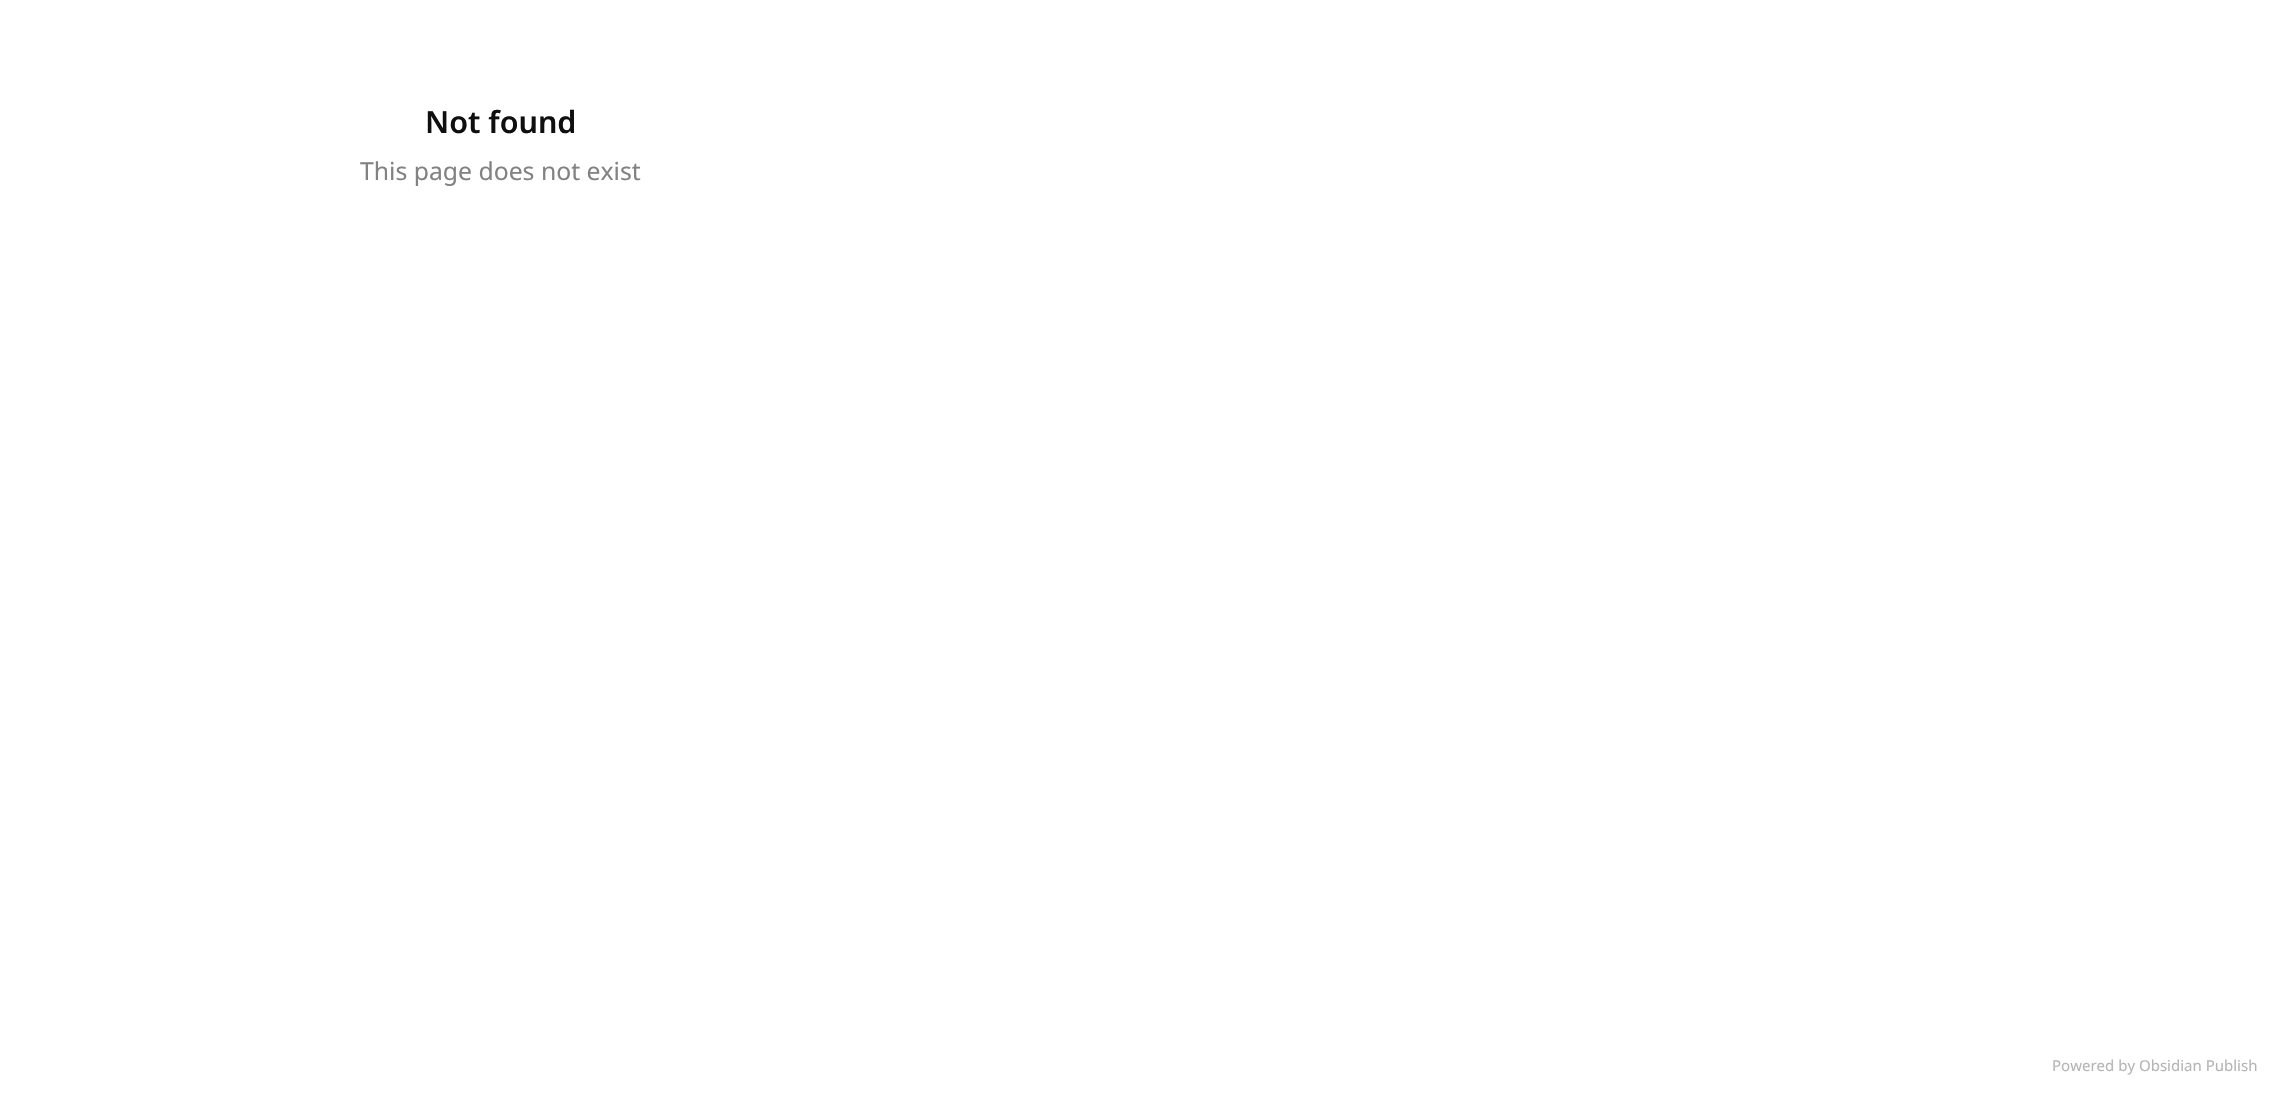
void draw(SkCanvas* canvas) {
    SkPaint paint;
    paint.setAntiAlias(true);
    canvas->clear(0xFFFFFFFF);
    SkFont font1(fontMgr->matchFamilyStyle("Noto Sans", SkFontStyle(600, SkFontStyle::kNormal_Width, SkFontStyle::kUpright_Slant)), 30.5f);
    font1.setSubpixel(true);
    paint.setColor(0xFF0F0F0F);
    canvas->drawString("Not found", 425, 133, font1, paint);
    SkFont font2(fontMgr->matchFamilyStyle("Noto Sans", SkFontStyle::Normal()), 24.75f);
    font2.setSubpixel(true);
    paint.setColor(0xFF828282);
    canvas->drawString("This page does not exist", 360, 180, font2, paint);
    SkFont font3(fontMgr->matchFamilyStyle("Noto Sans", SkFontStyle::Normal()), 15);
    font3.setSubpixel(true);
    paint.setColor(0xFFB5B5B5);
    canvas->drawString("Powered by Obsidian Publish", 2052, 1071, font3, paint);
}
